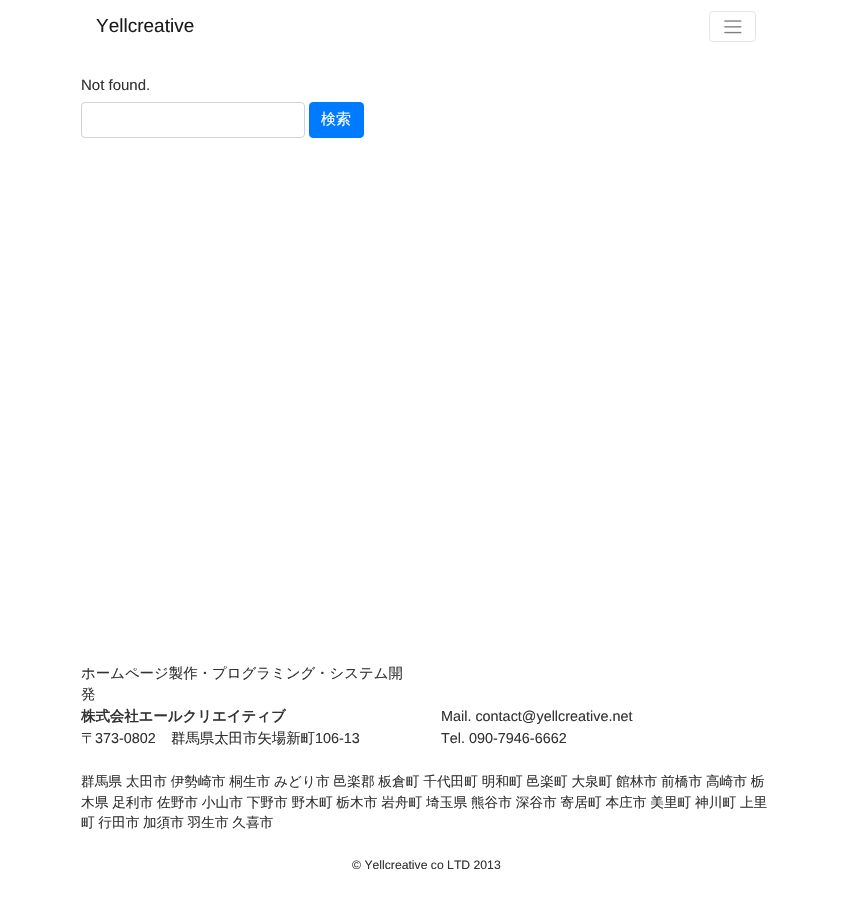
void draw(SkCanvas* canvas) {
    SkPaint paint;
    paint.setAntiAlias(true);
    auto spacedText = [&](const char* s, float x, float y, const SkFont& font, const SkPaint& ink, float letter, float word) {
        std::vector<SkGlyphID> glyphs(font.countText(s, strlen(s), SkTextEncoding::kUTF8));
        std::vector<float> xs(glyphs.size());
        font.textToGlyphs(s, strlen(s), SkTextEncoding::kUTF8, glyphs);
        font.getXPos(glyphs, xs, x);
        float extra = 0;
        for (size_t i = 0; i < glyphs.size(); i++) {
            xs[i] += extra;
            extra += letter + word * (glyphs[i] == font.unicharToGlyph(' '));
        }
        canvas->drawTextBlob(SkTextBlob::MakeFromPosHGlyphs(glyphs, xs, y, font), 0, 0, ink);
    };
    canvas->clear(0xFFFFFFFF);
    SkFont font1(fontMgr->matchFamilyStyle("Liberation Sans", SkFontStyle::Normal()), 19);
    font1.setSubpixel(true);
    paint.setColor(0xFF1A1A1A);
    canvas->drawString("Yellcreative", 96, 32, font1, paint);
    paint.setStyle(SkPaint::kStroke_Style);
    paint.setStrokeWidth(1);
    paint.setColor(0xFFE6E6E6);
    canvas->drawRoundRect(SkRect::MakeXYWH(709.5f, 11.5f, 46, 30), 3.5f, 3.5f, paint);
    canvas->drawImageRect(SkImages::DeferredFromEncodedData(SkData::MakeFromFileName("img1.png")), SkRect::MakeXYWH(724, 20, 18, 14), SkSamplingOptions());
    SkFont font2(fontMgr->matchFamilyStyle("Liberation Sans", SkFontStyle::Normal()), 15);
    font2.setSubpixel(true);
    paint.setStyle(SkPaint::kFill_Style);
    paint.setColor(0xFF333333);
    canvas->drawString("Not found.", 81, 90, font2, paint);
    paint.setStyle(SkPaint::kStroke_Style);
    paint.setColor(0xFFCED4DA);
    canvas->drawRoundRect(SkRect::MakeXYWH(81.5f, 102.5f, 223, 35), 3.5f, 3.5f, paint);
    paint.setStyle(SkPaint::kFill_Style);
    paint.setColor(0xFF007BFF);
    canvas->drawRoundRect(SkRect::MakeXYWH(309.5f, 102.5f, 54, 35), 3.5f, 3.5f, paint);
    paint.setStyle(SkPaint::kStroke_Style);
    canvas->drawRoundRect(SkRect::MakeXYWH(309.5f, 102.5f, 54, 35), 3.5f, 3.5f, paint);
    SkFont font3(fontMgr->matchFamilyStyle("WenQuanYi Zen Hei", SkFontStyle(500, SkFontStyle::kNormal_Width, SkFontStyle::kUpright_Slant)), 15);
    font3.setSubpixel(true);
    paint.setStyle(SkPaint::kFill_Style);
    paint.setColor(0xFFFFFFFF);
    canvas->drawString("検索", 321, 124, font3, paint);
    SkFont font4(fontMgr->matchFamilyStyle("WenQuanYi Zen Hei", SkFontStyle(500, SkFontStyle::kNormal_Width, SkFontStyle::kUpright_Slant)), 14.4f);
    font4.setSubpixel(true);
    paint.setColor(0xFF333333);
    canvas->drawString("ホームページ製作・プログラミング・システム開", 81, 678, font4, paint);
    canvas->drawString("発", 81, 699, font4, paint);
    SkFont font5(fontMgr->matchFamilyStyle("WenQuanYi Zen Hei", SkFontStyle::Bold()), 14.4f);
    font5.setSubpixel(true);
    canvas->drawString("株式会社エールクリエイティブ", 81, 721, font5, paint);
    canvas->drawString("〒", 81, 743, font4, paint);
    SkFont font6(fontMgr->matchFamilyStyle("Liberation Sans", SkFontStyle::Normal()), 14.4f);
    font6.setSubpixel(true);
    canvas->drawString("373-0802", 95, 743, font6, paint);
    canvas->drawString("群馬県太田市矢場新町", 171, 743, font4, paint);
    canvas->drawString("106-13", 315, 743, font6, paint);
    canvas->drawString("Mail. contact@yellcreative.net", 441, 721, font6, paint);
    canvas->drawString("Tel. 090-7946-6662", 441, 743, font6, paint);
    SkFont font7(fontMgr->matchFamilyStyle("WenQuanYi Zen Hei", SkFontStyle(500, SkFontStyle::kNormal_Width, SkFontStyle::kUpright_Slant)), 13.68f);
    font7.setSubpixel(true);
    spacedText("群馬県 太田市 伊勢崎市 桐生市 みどり市 邑楽郡 板倉町 千代田町 明和町 邑楽町 大泉町 館林市 前橋市 高崎市 栃", 81, 786, font7, paint, 0, -0.3f);
    spacedText("木県 足利市 佐野市 小山市 下野市 野木町 栃木市 岩舟町 埼玉県 熊谷市 深谷市 寄居町 本庄市 美里町 神川町 上里", 81, 807, font7, paint, 0, -0.3f);
    spacedText("町 行田市 加須市 羽生市 久喜市", 81, 827, font7, paint, 0, -0.5f);
    SkFont font8(fontMgr->matchFamilyStyle("Liberation Sans", SkFontStyle::Normal()), 12.2f);
    font8.setSubpixel(true);
    canvas->drawString("© Yellcreative co LTD 2013", 352, 869, font8, paint);
}
